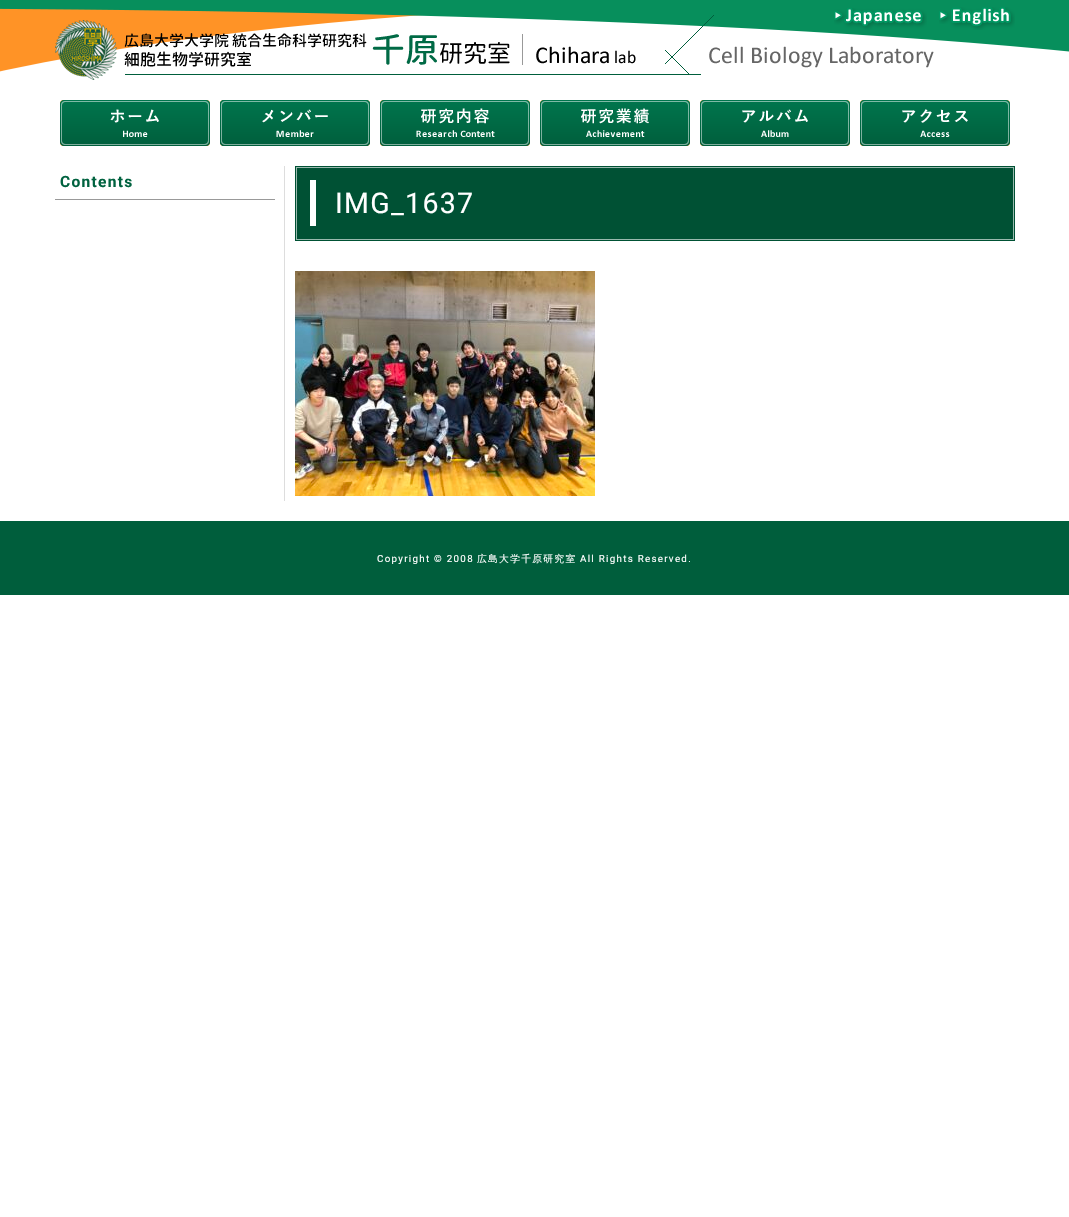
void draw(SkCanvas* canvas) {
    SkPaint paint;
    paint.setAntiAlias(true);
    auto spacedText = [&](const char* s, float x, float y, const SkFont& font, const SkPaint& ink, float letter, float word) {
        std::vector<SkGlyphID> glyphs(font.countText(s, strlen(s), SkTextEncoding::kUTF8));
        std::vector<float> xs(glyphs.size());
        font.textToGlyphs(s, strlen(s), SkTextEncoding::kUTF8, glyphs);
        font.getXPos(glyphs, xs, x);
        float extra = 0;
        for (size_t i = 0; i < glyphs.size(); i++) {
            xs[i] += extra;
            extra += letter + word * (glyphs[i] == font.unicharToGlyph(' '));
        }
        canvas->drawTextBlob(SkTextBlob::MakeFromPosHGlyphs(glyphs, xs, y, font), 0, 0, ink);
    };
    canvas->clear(0xFFFFFFFF);
    canvas->drawImageRect(SkImages::DeferredFromEncodedData(SkData::MakeFromFileName("img1.png")), SkRect::MakeXYWH(0, 0, 1069, 72), SkSamplingOptions());
    canvas->drawImageRect(SkImages::DeferredFromEncodedData(SkData::MakeFromFileName("img4.png")), SkRect::MakeXYWH(55, 15, 879, 65), SkSamplingOptions());
    canvas->drawImageRect(SkImages::DeferredFromEncodedData(SkData::MakeFromFileName("img2.png")), SkRect::MakeXYWH(834, 8, 93, 22), SkSamplingOptions());
    canvas->drawImageRect(SkImages::DeferredFromEncodedData(SkData::MakeFromFileName("img3.png")), SkRect::MakeXYWH(939, 7, 76, 23), SkSamplingOptions());
    canvas->drawImageRect(SkImages::DeferredFromEncodedData(SkData::MakeFromFileName("img5.png")), SkRect::MakeXYWH(60, 100, 950, 46), SkSamplingOptions());
    canvas->drawImageRect(SkImages::DeferredFromEncodedData(SkData::MakeFromFileName("img6.png")), SkRect::MakeXYWH(60, 100, 150, 46), SkSamplingOptions());
    canvas->drawImageRect(SkImages::DeferredFromEncodedData(SkData::MakeFromFileName("img7.png")), SkRect::MakeXYWH(220, 100, 150, 46), SkSamplingOptions());
    canvas->drawImageRect(SkImages::DeferredFromEncodedData(SkData::MakeFromFileName("img8.png")), SkRect::MakeXYWH(380, 100, 150, 46), SkSamplingOptions());
    canvas->drawImageRect(SkImages::DeferredFromEncodedData(SkData::MakeFromFileName("img9.png")), SkRect::MakeXYWH(540, 100, 150, 46), SkSamplingOptions());
    canvas->drawImageRect(SkImages::DeferredFromEncodedData(SkData::MakeFromFileName("img10.png")), SkRect::MakeXYWH(700, 100, 150, 46), SkSamplingOptions());
    canvas->drawImageRect(SkImages::DeferredFromEncodedData(SkData::MakeFromFileName("img11.png")), SkRect::MakeXYWH(860, 100, 150, 46), SkSamplingOptions());
    paint.setColor(0xFF999999);
    canvas->drawRect(SkRect::MakeXYWH(55, 199, 220, 1), paint);
    SkFont font1(fontMgr->matchFamilyStyle("Roboto", SkFontStyle::Bold()), 15.5f);
    font1.setSubpixel(true);
    paint.setColor(0xFF00623F);
    spacedText("Contents", 60, 187, font1, paint, 1.3f, 0);
    paint.setColor(0xFFDDDDDD);
    canvas->drawRect(SkRect::MakeXYWH(284, 166, 1, 335), paint);
    paint.setColor(0xFF005134);
    canvas->drawRect(SkRect::MakeXYWH(295, 166, 720, 75), paint);
    paint.setColor(0xFFFFFFFF);
    canvas->drawRect(SkRect::MakeXYWH(310, 180, 6, 46), paint);
    paint.setStyle(SkPaint::kStroke_Style);
    paint.setStrokeWidth(1);
    paint.setColor(0xFF99B9AE);
    canvas->drawRect(SkRect::MakeXYWH(296.5f, 167.5f, 717, 72), paint);
    SkFont font2(fontMgr->matchFamilyStyle("Roboto", SkFontStyle::Normal()), 28.5f);
    font2.setSubpixel(true);
    paint.setStyle(SkPaint::kFill_Style);
    paint.setColor(0xFFFFFFFF);
    spacedText("IMG_1637", 335, 213, font2, paint, 1.3f, 0);
    canvas->drawImageRect(SkImages::DeferredFromEncodedData(SkData::MakeFromFileName("img12.png")), SkRect::MakeXYWH(295, 271, 300, 225), SkSamplingOptions());
    paint.setColor(0xFF005E3C);
    canvas->drawRect(SkRect::MakeXYWH(0, 521, 1069, 74), paint);
    SkFont font3(fontMgr->matchFamilyStyle("Roboto", SkFontStyle::Normal()), 9.75f);
    font3.setSubpixel(true);
    paint.setColor(0xFFFFFFFF);
    spacedText("Copyright © 2008", 377, 562, font3, paint, 1.3f, 0);
    SkFont font4(fontMgr->matchFamilyStyle("WenQuanYi Zen Hei", SkFontStyle(500, SkFontStyle::kNormal_Width, SkFontStyle::kUpright_Slant)), 9.75f);
    font4.setSubpixel(true);
    spacedText("広島大学千原研究室", 477, 562, font4, paint, 1.3f, 0);
    spacedText("All Rights Reserved.", 580, 562, font3, paint, 1.3f, 0);
}
